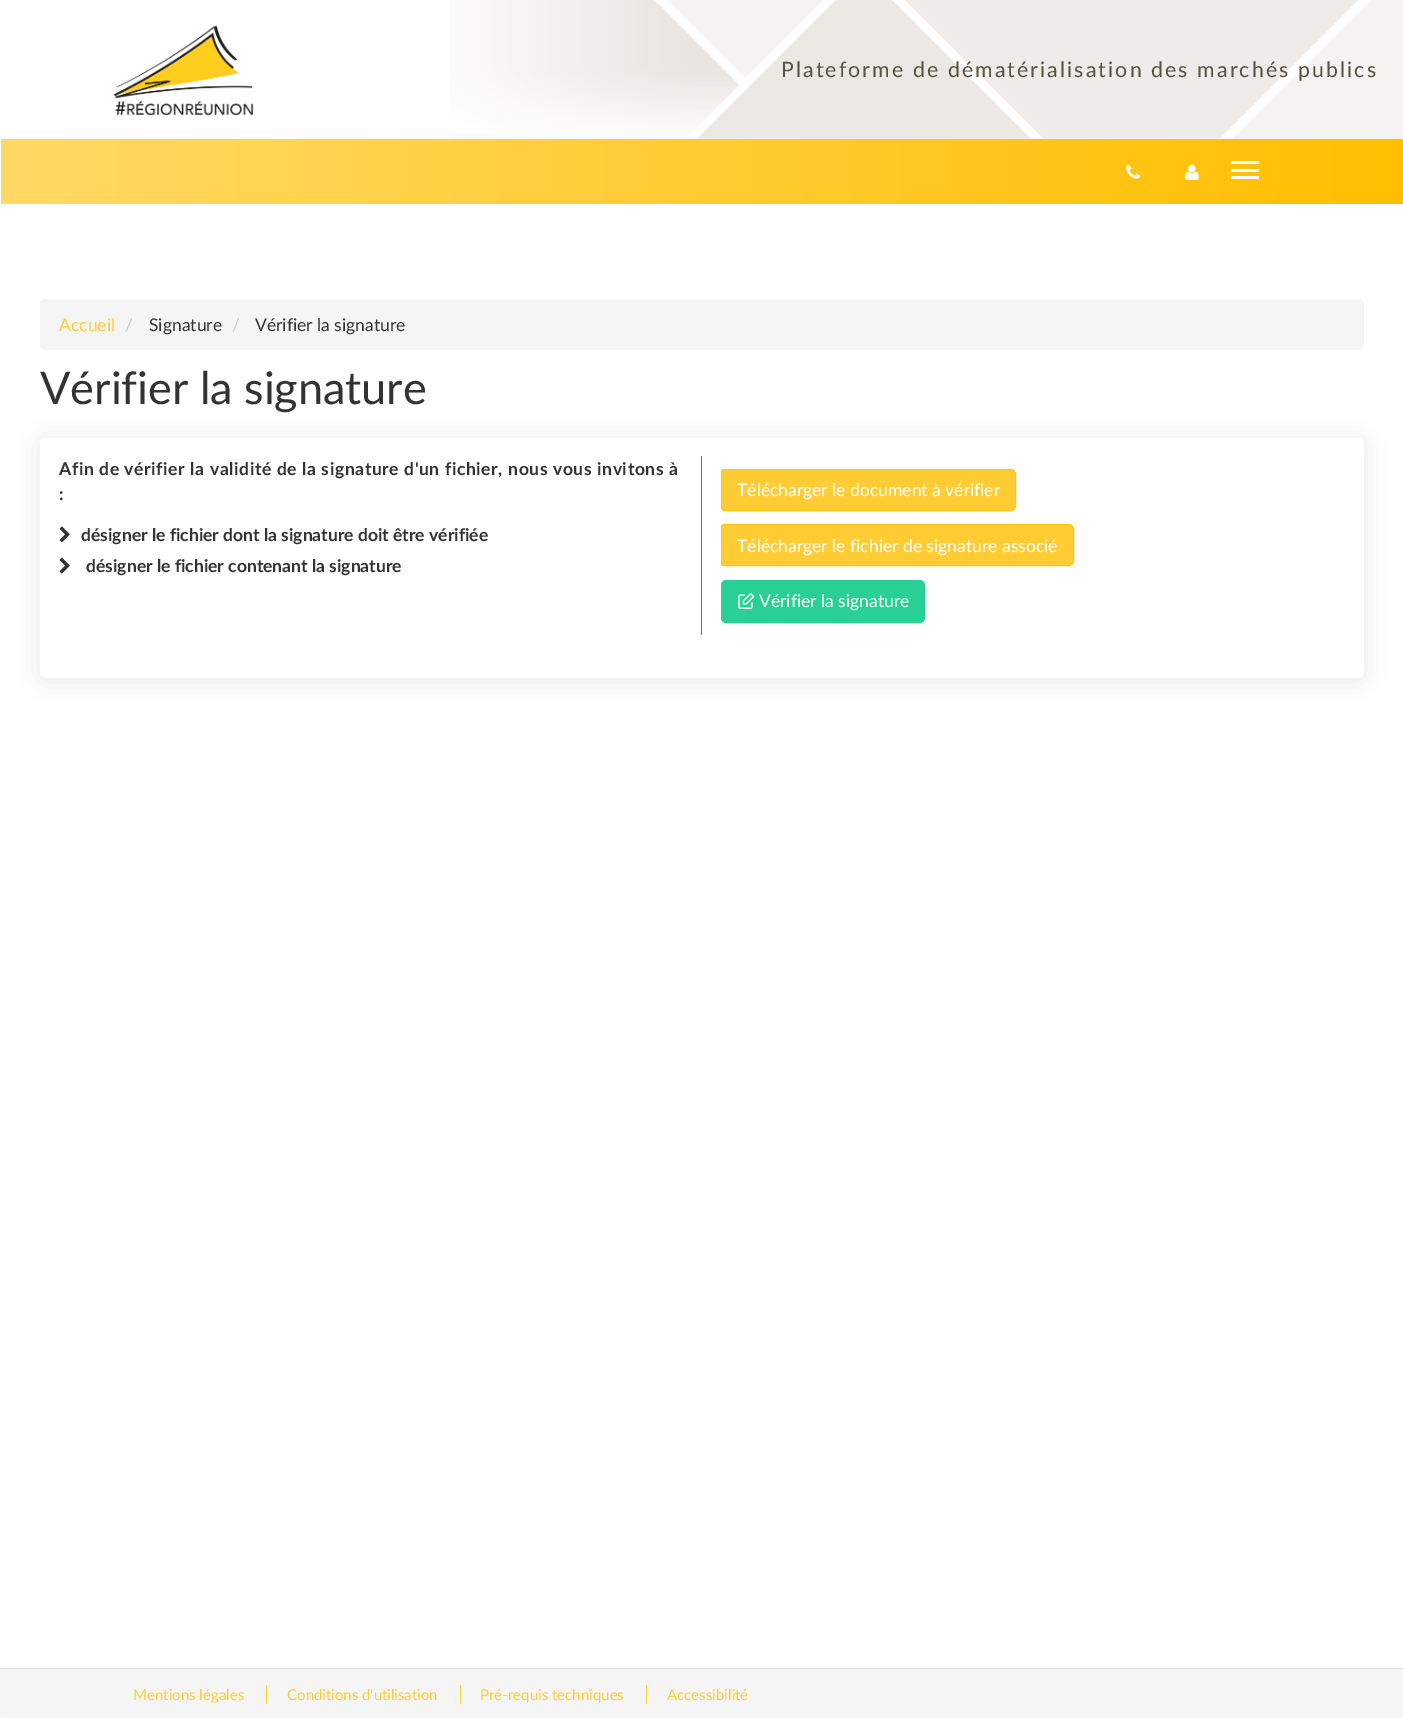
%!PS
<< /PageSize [1403 1718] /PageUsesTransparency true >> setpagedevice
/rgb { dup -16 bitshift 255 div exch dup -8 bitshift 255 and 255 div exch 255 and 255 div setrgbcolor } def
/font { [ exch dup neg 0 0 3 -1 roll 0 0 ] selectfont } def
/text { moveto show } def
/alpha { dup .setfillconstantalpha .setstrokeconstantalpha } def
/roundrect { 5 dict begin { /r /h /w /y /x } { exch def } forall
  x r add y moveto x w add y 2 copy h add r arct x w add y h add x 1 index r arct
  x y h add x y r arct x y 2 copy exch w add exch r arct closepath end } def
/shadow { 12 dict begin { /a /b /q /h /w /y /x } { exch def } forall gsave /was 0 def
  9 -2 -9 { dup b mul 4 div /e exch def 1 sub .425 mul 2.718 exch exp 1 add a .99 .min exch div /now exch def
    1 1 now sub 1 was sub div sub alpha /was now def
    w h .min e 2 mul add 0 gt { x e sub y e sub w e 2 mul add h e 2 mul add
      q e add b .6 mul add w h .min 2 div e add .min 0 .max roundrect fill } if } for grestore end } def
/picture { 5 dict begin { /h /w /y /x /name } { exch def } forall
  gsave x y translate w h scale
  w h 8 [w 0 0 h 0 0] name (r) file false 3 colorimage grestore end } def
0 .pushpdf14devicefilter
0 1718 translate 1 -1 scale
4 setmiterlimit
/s1 { /Lato-Regular 17.5 font 16#FFCC33 rgb } def
/s2 { /Lato-Regular 17.5 font 16#CCCCCC rgb } def
/s3 { /Lato-Regular 17.5 font 16#333333 rgb } def
/s4 { /Lato-Regular 45 font 16#333333 rgb } def
/s5 { /Lato-Bold 17.5 font 16#333333 rgb } def
/s6 { /Lato-Regular 17.5 font 16#FFFFFF rgb } def
/s7 { /Lato-Regular 15 font 16#FFCC33 rgb } def
16#FFFFFF rgb
0 0 1403 1718 rectfill
(pic1.raw) 449 0 954 139 picture
(pic2.raw) 113 25 141 91 picture
/Lato-Regular 21.25 font
16#565140 rgb
781 77 moveto 2.12 0 (Plateforme de dématérialisation des marchés publics) ashow
gsave 1 139 moveto 1403 139 lineto 1403 204 lineto 1 204 lineto closepath clip newpath
<< /ShadingType 2 /ColorSpace /DeviceRGB /Coords [1.2 171 1403 171] /Extend [true true] /Function << /FunctionType 2 /Domain [0 1] /C0 [1 0.851 0.4] /C1 [1 0.749 0] /N 1 >> >> shfill grestore
(pic3.raw) 1126 165 14 14 picture
(pic4.raw) 1185 165 14 15 picture
16#FFFFFF rgb
1231 161 28 3 1.5 roundrect fill
1231 169 28 3 1.5 roundrect fill
1231 176 28 3 1.5 roundrect fill
16#F5F5F5 rgb
40 299 1324 51 5 roundrect fill
s1
(Accueil) 59 331 text
s2
(/) 125 331 text
s3
(Signature) 149 331 text
s2
(/) 232 331 text
s3
(Vérifier la signature) 255 331 text
s4
(Vérifier la signature) 40 404 text
16#313548 rgb
39 439 1326 242 8 11 0.1 shadow
16#FFFFFF rgb
40 438 1324 240 6 roundrect fill
16#626E82 rgb
701 456 1 179 rectfill
/Lato-Bold 17.5 font
16#333333 rgb
59 475 moveto 0.62 0 (Afin de vérifier la validité de la signature d'un fichier, nous vous invitons à) ashow
59 500 moveto 0.62 0 (:) ashow
(pic5.raw) 59 526 11 17 picture
(désigner le fichier dont la signature doit être vérifiée) 81 541 text
(pic6.raw) 59 557 11 17 picture
(désigner le fichier contenant la signature) 86 572 text
16#FFCC33 rgb
724 469.5 moveto 1011 469.5 lineto 1013.5 469.5 1015.5 471.5 1015.5 474 curveto 1015.5 506 lineto 1015.5 508.5 1013.5 510.5 1011 510.5 curveto 724 510.5 lineto 722.5 510.5 721.5 509.5 721.5 508 curveto 721.5 472 lineto 721.5 470.5 722.5 469.5 724 469.5 curveto closepath gsave fill grestore
16#FFC61A rgb
stroke
s6
(Télécharger le document à vérifier) 737 496 text
16#FFCC33 rgb
724 524.5 moveto 1069 524.5 lineto 1071.5 524.5 1073.5 526.5 1073.5 529 curveto 1073.5 561 lineto 1073.5 563.5 1071.5 565.5 1069 565.5 curveto 724 565.5 lineto 722.5 565.5 721.5 564.5 721.5 563 curveto 721.5 527 lineto 721.5 525.5 722.5 524.5 724 524.5 curveto closepath gsave fill grestore
16#FFC61A rgb
stroke
s6
(Télécharger le fichier de signature associé) 737 552 text
16#28D094 rgb
721.5 580.5 203 42 4.5 roundrect gsave fill grestore
stroke
(pic7.raw) 738 593 17 16 picture
s6
(Vérifier la signature) 759 607 text
16#F5F5F5 rgb
0 1668 moveto 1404 1668 lineto 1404 1715 lineto 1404 1717 1402 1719 1400 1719 curveto 4 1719 lineto 2 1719 0 1717 0 1715 curveto closepath fill
16#DDDDDD rgb
0 1668 1403 1 rectfill
s7
(Mentions légales) 133 1700 text
(Conditions d'utilisation) 287 1700 text
266 1685 1 19 rectfill
(Pré-requis techniques) 480 1700 text
460 1685 1 19 rectfill
(Accessibilité) 667 1700 text
646 1685 1 19 rectfill
.poppdf14devicefilter showpage
